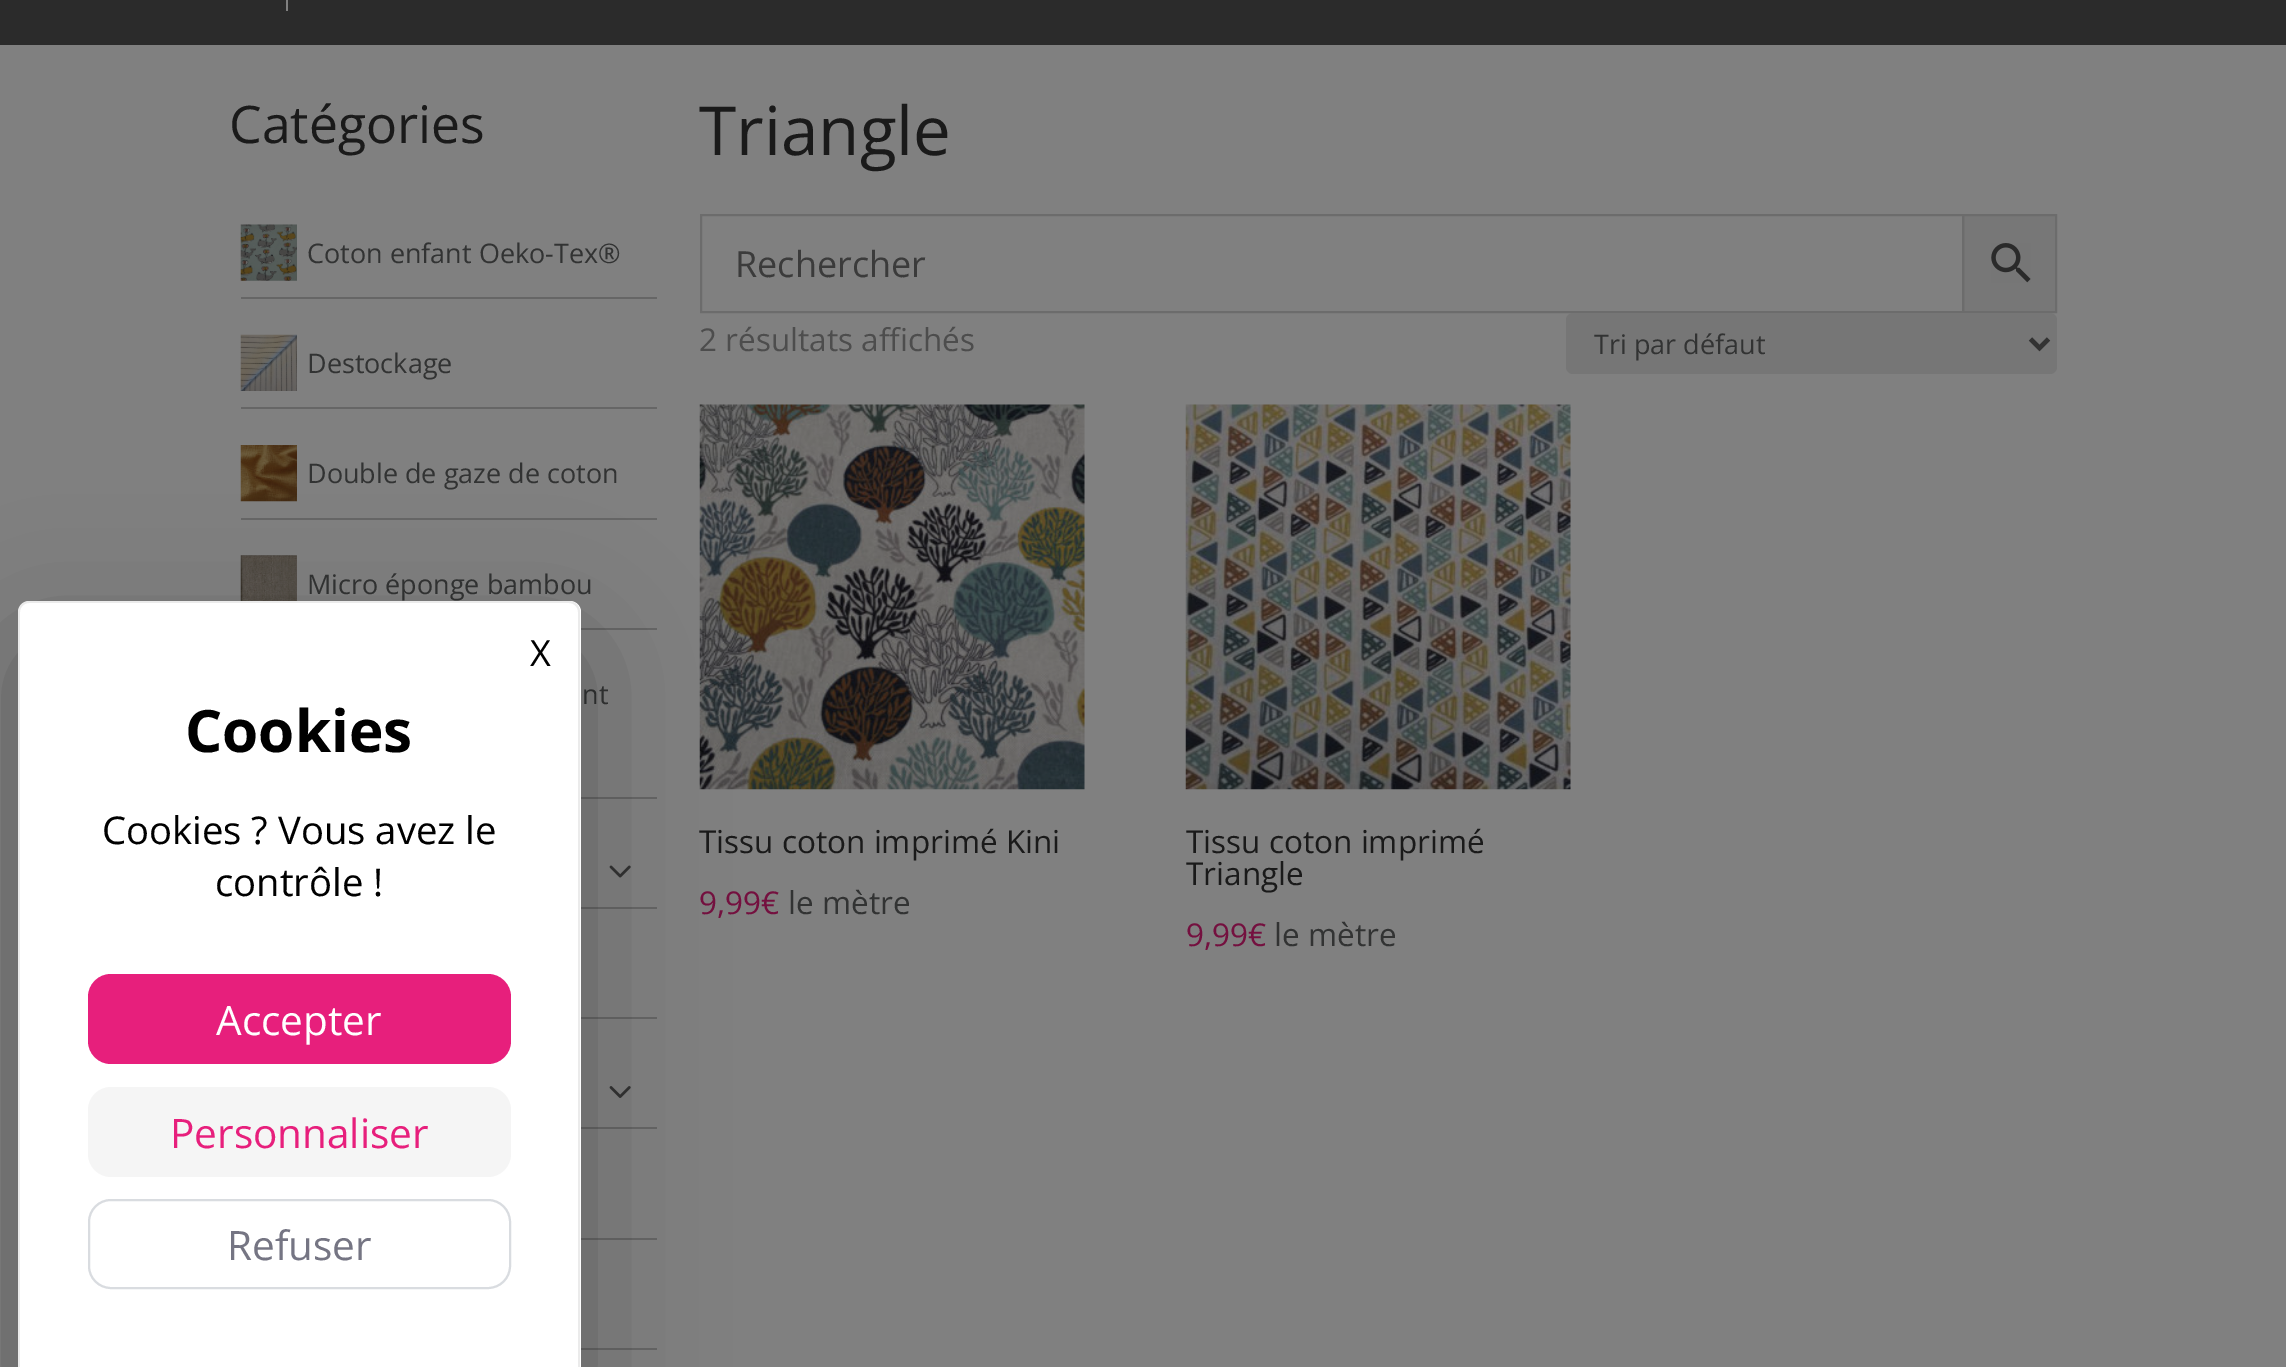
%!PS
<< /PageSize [2286 1367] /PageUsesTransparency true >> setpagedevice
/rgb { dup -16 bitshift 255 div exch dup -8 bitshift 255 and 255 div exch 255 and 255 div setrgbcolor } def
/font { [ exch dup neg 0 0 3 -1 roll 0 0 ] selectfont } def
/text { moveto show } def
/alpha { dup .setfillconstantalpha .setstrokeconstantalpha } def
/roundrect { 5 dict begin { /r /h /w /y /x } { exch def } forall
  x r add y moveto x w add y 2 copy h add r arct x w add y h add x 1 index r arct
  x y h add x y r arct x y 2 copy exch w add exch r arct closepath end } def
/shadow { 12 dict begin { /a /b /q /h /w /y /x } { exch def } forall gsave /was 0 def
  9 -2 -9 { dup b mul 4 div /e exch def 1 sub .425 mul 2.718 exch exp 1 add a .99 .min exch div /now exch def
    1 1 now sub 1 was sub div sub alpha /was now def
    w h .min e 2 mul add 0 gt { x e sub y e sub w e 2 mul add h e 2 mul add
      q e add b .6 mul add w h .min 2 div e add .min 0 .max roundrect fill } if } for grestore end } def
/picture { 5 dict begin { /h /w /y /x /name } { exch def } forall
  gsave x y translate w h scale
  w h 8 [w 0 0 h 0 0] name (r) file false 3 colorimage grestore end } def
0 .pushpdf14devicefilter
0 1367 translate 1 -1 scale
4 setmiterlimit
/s1 { /OpenSans-Regular 51.75 font 16#1A1A1A rgb } def
/s2 { /OpenSans-Regular 27 font 16#323333 rgb } def
/s3 { /OpenSans-Regular 67.5 font 16#1A1A1A rgb } def
/s4 { /OpenSans-Regular 36 font 16#3B3B3B rgb } def
/s5 { /OpenSans-Regular 31.5 font 16#4D4D4D rgb } def
/s6 { /OpenSans-Regular 31.5 font 16#1A1A1A rgb } def
/s7 { /OpenSans-Regular 31.5 font 16#74103F rgb } def
/s8 { /OpenSans-Regular 31.5 font 16#323333 rgb } def
/s9 { /OpenSans-Regular 36 font 16#000000 rgb } def
/s10 { /OpenSans-Bold 58.5 font 16#000000 rgb } def
/s11 { /OpenSans-Regular 38.25 font 16#000000 rgb } def
/s12 { /OpenSans-Regular 40.5 font 16#FFFFFF rgb } def
/s13 { /OpenSans-Regular 40.5 font 16#E71F7C rgb } def
/s14 { /OpenSans-Regular 40.5 font 16#757583 rgb } def
16#808080 rgb
0 0 2286 1367 rectfill
16#2B2B2B rgb
0 0 2286 45 rectfill
16#808080 rgb
286 0 2 11 rectfill
s1
(Catégories) 229 143 text
16#666666 rgb
241 297 416 2 rectfill
(pic1.raw) 240 224 57 57 picture
s2
(Coton enfant Oeko-Tex®) 307 263 text
16#666666 rgb
241 407 416 2 rectfill
(pic2.raw) 240 334 57 57 picture
s2
(Destockage) 307 373 text
16#666666 rgb
241 518 416 2 rectfill
(pic3.raw) 240 445 57 57 picture
s2
(Double de gaze de coton) 307 483 text
16#666666 rgb
581 628 76 2 rectfill
(pic4.raw) 240 555 57 46 picture
s2
(Micro éponge bambou) 307 594 text
16#666666 rgb
581 797 76 2 rectfill
s2
(nt) 582 704 text
(pic5.raw) 609 865 22 13 picture
16#666666 rgb
581 907 76 2 rectfill
581 1017 76 2 rectfill
(pic6.raw) 609 1086 22 12 picture
581 1127 76 2 rectfill
581 1238 76 2 rectfill
581 1348 76 2 rectfill
s3
(Triangle) 699 155 text
16#777777 rgb
1963 215 moveto 2056 215 lineto 2056 312 lineto 1963 312 lineto closepath gsave fill grestore
16#6C6C6C rgb
2 setlinewidth
stroke
701 215 1262 97 rectstroke
s4
(Rechercher) 735 277 text
(pic7.raw) 1991 243 40 40 picture
s5
(2 résultats affichés) 699 351 text
16#767676 rgb
1566 313 491 61 7 roundrect fill
16#333333 rgb
4.5 setlinewidth
2030.5 339 moveto 2039.5 348 lineto 2048.5 339 lineto stroke
s2
(Tri par défaut) 1594 354 text
(pic8.raw) 699 404 386 386 picture
s6
(Tissu coton imprimé Kini) 699 853 text
s7
(9,99€) 699 914 text
s8
(le mètre) 788 914 text
(pic9.raw) 1185 404 386 386 picture
s6
(Tissu coton imprimé) 1186 853 text
(Triangle) 1186 885 text
s7
(9,99€) 1186 946 text
s8
(le mètre) 1274 946 text
16#000000 rgb
18 646 563 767 11 67.5 0.25 shadow
16#FFFFFF rgb
29 601 moveto 570 601 lineto 576 601 581 606 581 612 curveto 581 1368 lineto 18 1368 lineto 18 612 lineto 18 606 23 601 29 601 curveto closepath fill
0.08 alpha
16#000000 rgb
29 601 moveto 569 601 lineto 575 601 580 606 580 612 curveto 580 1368 lineto 18 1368 lineto 18 612 lineto 18 606 23 601 29 601 curveto closepath 29 603 moveto 569 603 lineto 574 603 578 607 578 612 curveto 578 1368 lineto 20 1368 lineto 20 612 lineto 20 607 24 603 29 603 curveto closepath eofill
1 alpha
s9
(X) 530 666 text
s10
(Cookies) 185 752 text
s11
(Cookies ? Vous avez le) 102 844 text
(contrôle !) 215 896 text
16#E71F7C rgb
88 974 423 90 23 roundrect fill
s12
(Accepter) 216 1035 text
16#F5F5F5 rgb
88 1087 423 90 23 roundrect fill
s13
(Personnaliser) 170 1148 text
16#D9DCE0 rgb
2 setlinewidth
89 1200 421 88 22 roundrect stroke
s14
(Refuser) 227 1260 text
.poppdf14devicefilter showpage
